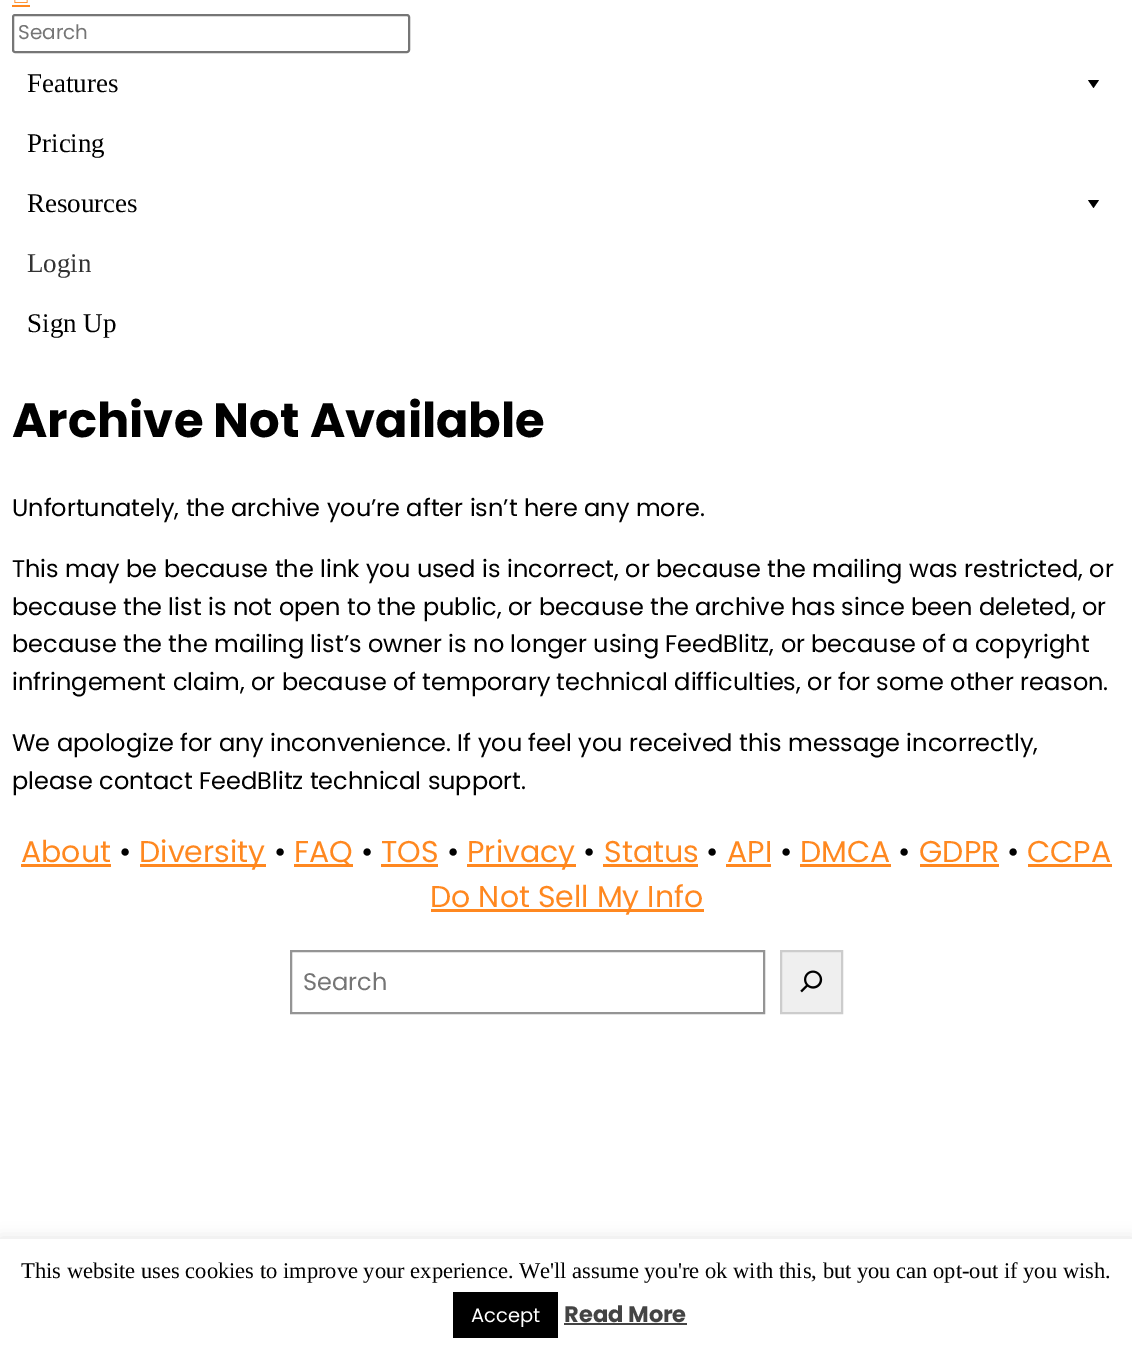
%!PS
<< /PageSize [1132 1356] /PageUsesTransparency true >> setpagedevice
/rgb { dup -16 bitshift 255 div exch dup -8 bitshift 255 and 255 div exch 255 and 255 div setrgbcolor } def
/font { [ exch dup neg 0 0 3 -1 roll 0 0 ] selectfont } def
/text { moveto show } def
/alpha { dup .setfillconstantalpha .setstrokeconstantalpha } def
/roundrect { 5 dict begin { /r /h /w /y /x } { exch def } forall
  x r add y moveto x w add y 2 copy h add r arct x w add y h add x 1 index r arct
  x y h add x y r arct x y 2 copy exch w add exch r arct closepath end } def
/shadow { 12 dict begin { /a /b /q /h /w /y /x } { exch def } forall gsave /was 0 def
  9 -2 -9 { dup b mul 4 div /e exch def 1 sub .425 mul 2.718 exch exp 1 add a .99 .min exch div /now exch def
    1 1 now sub 1 was sub div sub alpha /was now def
    w h .min e 2 mul add 0 gt { x e sub y e sub w e 2 mul add h e 2 mul add
      q e add b .6 mul add w h .min 2 div e add .min 0 .max roundrect fill } if } for grestore end } def
/picture { 5 dict begin { /h /w /y /x /name } { exch def } forall
  gsave x y translate w h scale
  w h 8 [w 0 0 h 0 0] name (r) file false 3 colorimage grestore end } def
0 .pushpdf14devicefilter
0 1356 translate 1 -1 scale
4 setmiterlimit
/s1 { /Poppins-Regular 20 font 16#757575 rgb } def
/s2 { /LiberationSerif-Regular 27 font 16#000000 rgb } def
/s3 { /LiberationSerif-Regular 27 font 16#333333 rgb } def
/s4 { /Poppins-Bold 48 font 16#000000 rgb } def
/s5 { /Poppins-Regular 24 font 16#000000 rgb } def
/s6 { /Poppins-Regular 30 font 16#FF8820 rgb } def
/s7 { /Poppins-Regular 30 font 16#000000 rgb } def
/s8 { /Poppins-Regular 24 font 16#757575 rgb } def
/s9 { /LiberationSerif-Regular 22.5 font 16#000000 rgb } def
/s10 { /Poppins-Regular 19.5 font 16#FFFFFF rgb } def
/s11 { /Poppins-Bold 22.5 font 16#444444 rgb } def
16#FFFFFF rgb
0 0 1132 1356 rectfill
(pic1.raw) 14 0 14 3 picture
16#FF8820 rgb
12 5 18 2 rectfill
16#767676 rgb
2 setlinewidth
13 15 396 37 2 roundrect stroke
s1
(Search) 18 39 text
s2
(Features) 27 92 text
1099 80 moveto 1093.5 88 lineto 1088 80 lineto closepath fill
(Pricing) 27 152 text
(Resources) 27 212 text
1099 200 moveto 1093.5 208 lineto 1088 200 lineto closepath fill
s3
(Login) 27 272 text
s2
(Sign Up) 27 332 text
s4
(Archive Not Available) 12 437 text
s5
(Unfortunately, the archive you’re after isn’t here any more.) 12 516 text
(This may be because the link you used is incorrect, or because the mailing was restricted, or) 12 577 text
(because the list is not open to the public, or because the archive has since been deleted, or) 12 615 text
(because the the mailing list’s owner is no longer using FeedBlitz, or because of a copyright) 12 652 text
(infringement claim, or because of temporary technical difficulties, or for some other reason.) 12 690 text
(We apologize for any inconvenience. If you feel you received this message incorrectly,) 12 751 text
(please contact FeedBlitz technical support.) 12 789 text
s6
(About) 21 862 text
21 864 90 3 rectfill
s7
(•) 119 862 text
16#FF8820 rgb
140 864 126 3 rectfill
(Diversity) 139 862 text
s7
(•) 274 862 text
16#FF8820 rgb
294 864 59 3 rectfill
(FAQ) 294 862 text
s7
(•) 361 862 text
s6
(TOS) 381 862 text
381 864 57 3 rectfill
s7
(•) 447 862 text
16#FF8820 rgb
467 864 109 3 rectfill
(Privacy) 467 862 text
s7
(•) 583 862 text
s6
(Status) 604 862 text
603 864 95 3 rectfill
s7
(•) 706 862 text
s6
(API) 727 862 text
726 864 45 3 rectfill
s7
(•) 780 862 text
s6
(DMCA) 800 862 text
800 864 91 3 rectfill
s7
(•) 898 862 text
s6
(GDPR) 919 862 text
920 864 79 3 rectfill
s7
(•) 1007 862 text
s6
(CCPA) 1027 862 text
1028 864 84 3 rectfill
431 909 273 3 rectfill
(Do Not Sell My Info) 430 907 text
16#949494 rgb
291 951 473 62 rectstroke
s8
(Search) 303 990 text
16#EFEFEF rgb
781 951 moveto 842 951 lineto 842 1013 lineto 781 1013 lineto closepath gsave fill grestore
16#CCCCCC rgb
stroke
(pic2.raw) 800 970 23 23 picture
16#ACABAB rgb
0 1238 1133 117 0 7.5 0.3 shadow
16#FFFFFF rgb
0 1239 1132 117 rectfill
s9
(This website uses cookies to improve your experience. We'll assume you're ok with this, but you can opt-out if you wish.) 21 1278 text
453 1292 105 46 rectfill
s10
(Accept) 471 1322 text
s11
(Read More) 564 1322 text
564 1323 123 2 rectfill
.poppdf14devicefilter showpage
